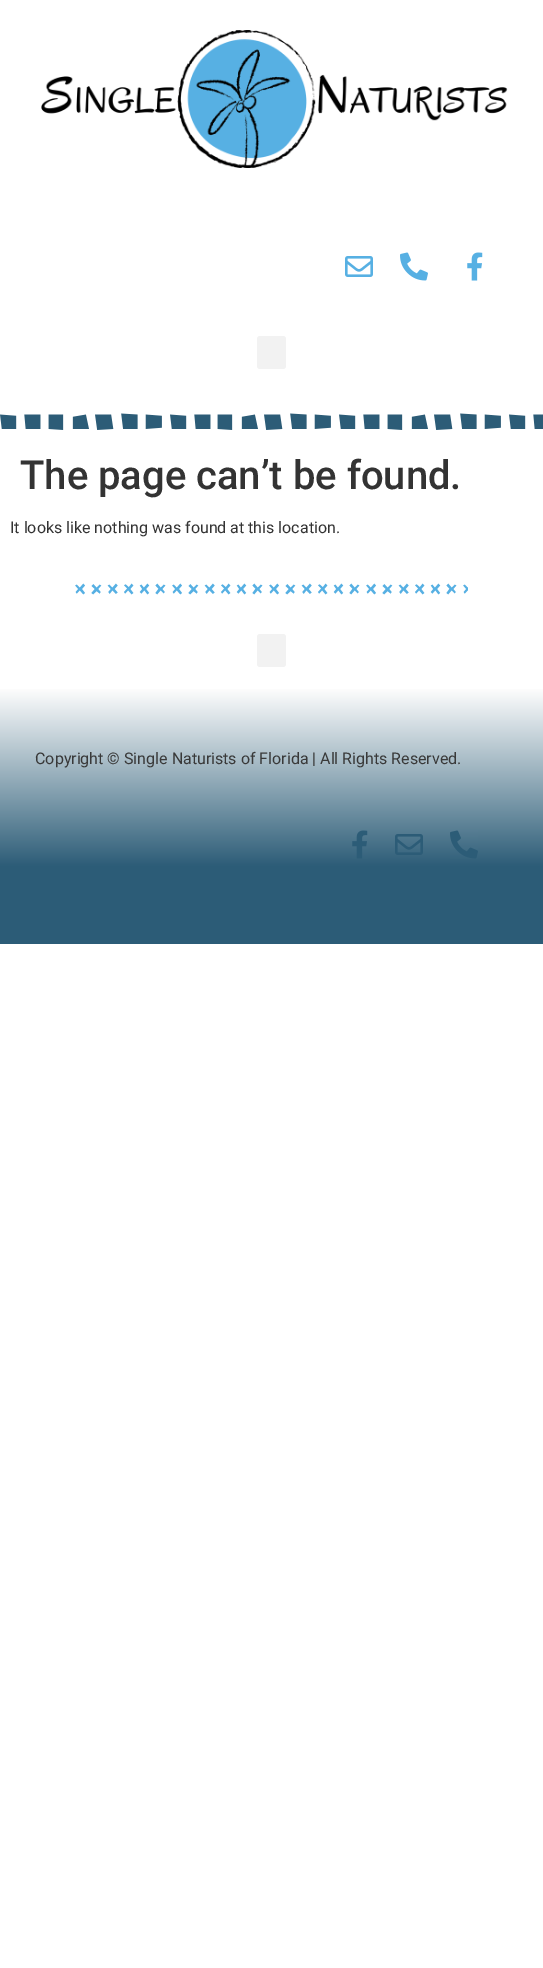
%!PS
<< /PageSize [543 1968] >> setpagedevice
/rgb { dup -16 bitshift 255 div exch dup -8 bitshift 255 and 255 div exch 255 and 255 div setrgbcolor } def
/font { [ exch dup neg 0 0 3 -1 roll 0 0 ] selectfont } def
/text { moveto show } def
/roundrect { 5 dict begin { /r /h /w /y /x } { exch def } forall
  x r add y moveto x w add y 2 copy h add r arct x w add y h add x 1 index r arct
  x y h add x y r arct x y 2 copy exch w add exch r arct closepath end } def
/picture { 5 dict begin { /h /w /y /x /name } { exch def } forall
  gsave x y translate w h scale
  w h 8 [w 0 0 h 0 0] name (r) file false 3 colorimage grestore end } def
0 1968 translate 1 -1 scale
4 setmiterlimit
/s1 { /Roboto-Medium 40 font 16#333333 rgb } def
/s2 { /Roboto-Regular 16 font 16#333333 rgb } def
/s3 { /Roboto-Regular 16 font 16#393939 rgb } def
16#FFFFFF rgb
0 0 543 1968 rectfill
(pic1.raw) 41 30 467 138 picture
(pic2.raw) 345 256 28 21 picture
(pic3.raw) 400 252 28 29 picture
(pic4.raw) 467 252 16 29 picture
16#F2F2F2 rgb
257 336 29 33 3 roundrect fill
(pic5.raw) 0 413 543 17 picture
s1
(The page can’t be found.) 20 489 text
s2
(It looks like nothing was found at this location.) 10 533 text
(pic6.raw) 75 583 393 12 picture
16#F2F2F2 rgb
257 634 29 33 3 roundrect fill
gsave 0 689 moveto 543 689 lineto 543 944 lineto 0 944 lineto closepath clip newpath
<< /ShadingType 2 /ColorSpace /DeviceRGB /Coords [272 687 272 944] /Extend [true true] /Function << /FunctionType 3 /Domain [0 1] /Functions [<< /FunctionType 2 /Domain [0 1] /C0 [1 1 1] /C1 [0.173 0.361 0.467] /N 1 >> << /FunctionType 2 /Domain [0 1] /C0 [0.173 0.361 0.467] /C1 [0.173 0.361 0.467] /N 1 >>] /Bounds [0.7] /Encode [0 1 0 1] >> >> shfill grestore
s3
(Copyright © Single Naturists of Florida | All Rights Reserved.) 35 764 text
(pic7.raw) 352 830 16 29 picture
(pic8.raw) 395 834 28 21 picture
(pic9.raw) 450 830 28 29 picture
showpage
